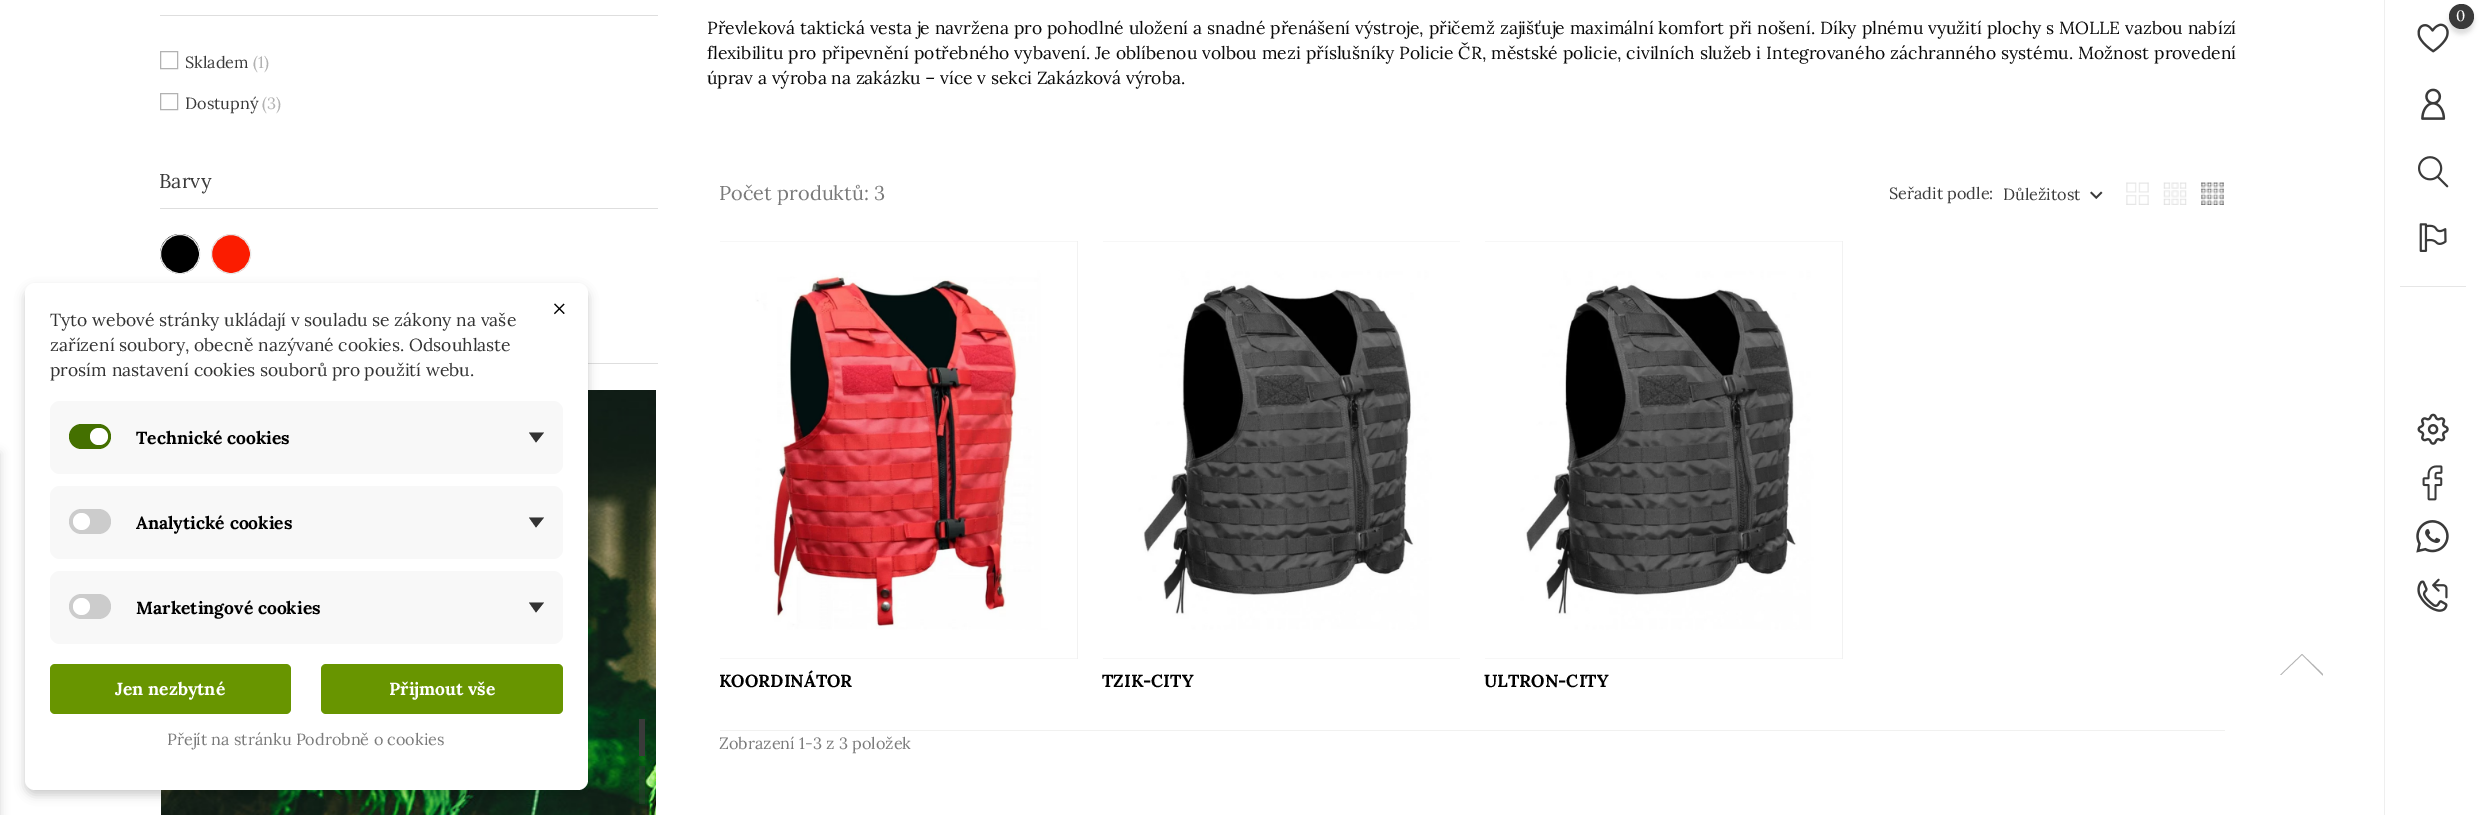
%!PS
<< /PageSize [2479 815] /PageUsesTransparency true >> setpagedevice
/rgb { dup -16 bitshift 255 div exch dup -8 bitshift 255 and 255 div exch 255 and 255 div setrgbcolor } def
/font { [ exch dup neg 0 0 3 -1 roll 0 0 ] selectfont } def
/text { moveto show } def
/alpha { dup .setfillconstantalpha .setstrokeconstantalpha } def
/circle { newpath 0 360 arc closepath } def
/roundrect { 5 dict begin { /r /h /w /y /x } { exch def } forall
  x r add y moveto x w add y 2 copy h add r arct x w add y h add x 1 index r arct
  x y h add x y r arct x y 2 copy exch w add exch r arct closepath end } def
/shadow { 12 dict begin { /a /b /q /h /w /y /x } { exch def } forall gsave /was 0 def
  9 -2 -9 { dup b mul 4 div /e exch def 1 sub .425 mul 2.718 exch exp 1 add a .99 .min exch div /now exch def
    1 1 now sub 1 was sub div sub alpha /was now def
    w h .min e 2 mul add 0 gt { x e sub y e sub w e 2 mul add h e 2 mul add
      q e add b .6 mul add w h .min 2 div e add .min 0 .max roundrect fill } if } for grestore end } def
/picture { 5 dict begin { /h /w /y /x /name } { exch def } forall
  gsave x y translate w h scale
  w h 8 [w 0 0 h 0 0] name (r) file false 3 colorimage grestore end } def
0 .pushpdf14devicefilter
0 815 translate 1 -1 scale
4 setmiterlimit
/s1 { /Lora-Regular 15 font 16#FFFFFF rgb } def
/s2 { /Lora-Regular 16.25 font 16#3A3A3A rgb } def
/s3 { /Lora-Regular 16.25 font 16#B2B2B2 rgb } def
/s4 { /Lora-Regular 20 font 16#3A3A3A rgb } def
/s5 { /Lora-Regular 17.5 font 16#0A0A0A rgb } def
/s6 { /Lora-Regular 20 font 16#7A7A7A rgb } def
/s7 { /Lora-Bold 17.5 font 16#000000 rgb } def
/s8 { /Lora-Regular 16.25 font 16#7A7A7A rgb } def
/s9 { /Lora-Regular 31 font 16#000000 rgb } def
/s10 { /Lora-Regular 17.5 font 16#333333 rgb } def
/s11 { /Lora-Bold 17.5 font 16#FFFFFF rgb } def
16#FFFFFF rgb
0 0 2479 815 rectfill
16#EFEFEF rgb
2384 0 1 815 rectfill
(pic1.raw) 2417 23 32 30 picture
16#000000 rgb
2449 9 25 25 12.5 2.5 0.14 shadow
16#3A3A3A rgb
2461.5 16.5 12.5 circle fill
s1
(0) 2456 21 text
(pic2.raw) 2421 88 25 32 picture
(pic3.raw) 2418 156 31 32 picture
(pic4.raw) 2419 223 28 29 picture
16#E6E6E6 rgb
2400 286 66 1 rectfill
(pic5.raw) 2417 413 32 32 picture
(pic6.raw) 2422 465 21 36 picture
(pic7.raw) 2416 520 33 33 picture
(pic8.raw) 2417 578 31 34 picture
16#000000 rgb
-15 453 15 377 0 5 0.16 shadow
16#DEDEDE rgb
160 15 498 1 rectfill
16#B2B2B2 rgb
160.5 51.5 17 17 rectstroke
s2
(Skladem) 185 68 text
s3
(\(1\)) 253 68 text
160.5 93.5 17 16 rectstroke
s2
(Dostupný) 185 109 text
s3
(\(3\)) 262 109 text
16#DEDEDE rgb
160 208 498 1 rectfill
s4
(Barvy) 159 188 text
(pic9.raw) 160 234 40 40 picture
16#E7E7E7 rgb
180 254 19.5 circle stroke
16#FB1C00 rgb
231 254 19.5 circle gsave fill grestore
16#E7E7E7 rgb
stroke
16#DEDEDE rgb
588 363 70 1 rectfill
(pic10.raw) 161 390 495 425 picture
16#3A3A3A rgb
639 719 6 37 rectfill
0.4 alpha
639 766 6 38 rectfill
/Lora-Regular 17.5 font
1 alpha
16#0A0A0A rgb
707 34 moveto 0.3 0 32 (Převleková taktická vesta je navržena pro pohodlné uložení a snadné přenášení výstroje, přičemž zajišťuje maximální komfort při nošení. Díky plnému využití plochy s MOLLE vazbou nabízí) widthshow
707 59 moveto 0.4 0 32 (flexibilitu pro připevnění potřebného vybavení. Je oblíbenou volbou mezi příslušníky Policie ČR, městské policie, civilních služeb i Integrovaného záchranného systému. Možnost provedení) widthshow
(úprav a výroba na zakázku – více v sekci Zakázková výroba.) 707 84 text
s6
(Počet produktů: 3) 719 200 text
s2
(Seřadit podle:) 1889 199 text
(Důležitost) 2003 200 text
(pic11.raw) 2090 191 13 8 picture
(pic12.raw) 2126 182 23 23 picture
(pic13.raw) 2163 182 24 23 picture
(pic14.raw) 2201 182 23 23 picture
16#EDEDED rgb
720 241 358 418 rectfill
(pic15.raw) 720 241 358 418 picture
s7
(KOORDINÁTOR) 719 687 text
16#EDEDED rgb
1103 241 357 418 rectfill
(pic16.raw) 1103 241 357 418 picture
s7
(TZIK-CITY) 1102 687 text
16#EDEDED rgb
1485 241 358 418 rectfill
(pic17.raw) 1485 241 358 418 picture
s7
(ULTRON-CITY) 1484 687 text
16#F1F1F0 rgb
720 730 1505 1 rectfill
s8
(Zobrazení 1-3 z 3 položek) 719 749 text
16#000000 rgb
25 288 563 507 10 5 0.2 shadow
16#FFFFFF rgb
25 283 563 507 10 roundrect fill
s9
(×) 551 320 text
s10
(Tyto webové stránky ukládají v souladu se zákony na vaše) 50 326 text
(zařízení soubory, obecně nazývané cookies. Odsouhlaste) 50 351 text
(prosím nastavení cookies souborů pro použití webu.) 50 376 text
16#F8F8F8 rgb
50 401 513 73 10 roundrect fill
16#447000 rgb
69 424 42 25 12.5 roundrect fill
16#FFFFFF rgb
90 428 18 17 8.5 roundrect fill
s7
(Technické cookies) 136 444 text
16#333333 rgb
529 432.5 moveto 544 432.5 lineto 536 442.5 lineto closepath fill
16#F8F8F8 rgb
50 486 513 73 10 roundrect fill
16#CCCCCC rgb
69 509 42 25 12.5 roundrect fill
16#FFFFFF rgb
81.5 521.5 8.5 circle fill
s7
(Analytické cookies) 136 529 text
16#333333 rgb
529 517.5 moveto 544 517.5 lineto 536 527.5 lineto closepath fill
16#F8F8F8 rgb
50 571 513 73 10 roundrect fill
16#CCCCCC rgb
69 594 42 25 12.5 roundrect fill
16#FFFFFF rgb
81.5 606.5 8.5 circle fill
s7
(Marketingové cookies) 136 614 text
16#333333 rgb
529 602.5 moveto 544 602.5 lineto 536 612.5 lineto closepath fill
16#689500 rgb
50 664 241 50 5 roundrect fill
s11
(Jen nezbytné) 115 695 text
16#689500 rgb
321 664 242 50 5 roundrect fill
s11
(Přijmout vše) 389 695 text
s8
(Přejít na stránku Podrobně o cookies) 167 745 text
16#B2B2B2 rgb
2302 654 moveto 2280 675 lineto 2281 675 lineto 2302 655 lineto 2322 675 lineto 2323 676 2323 675 2323 674 curveto closepath fill
.poppdf14devicefilter showpage
